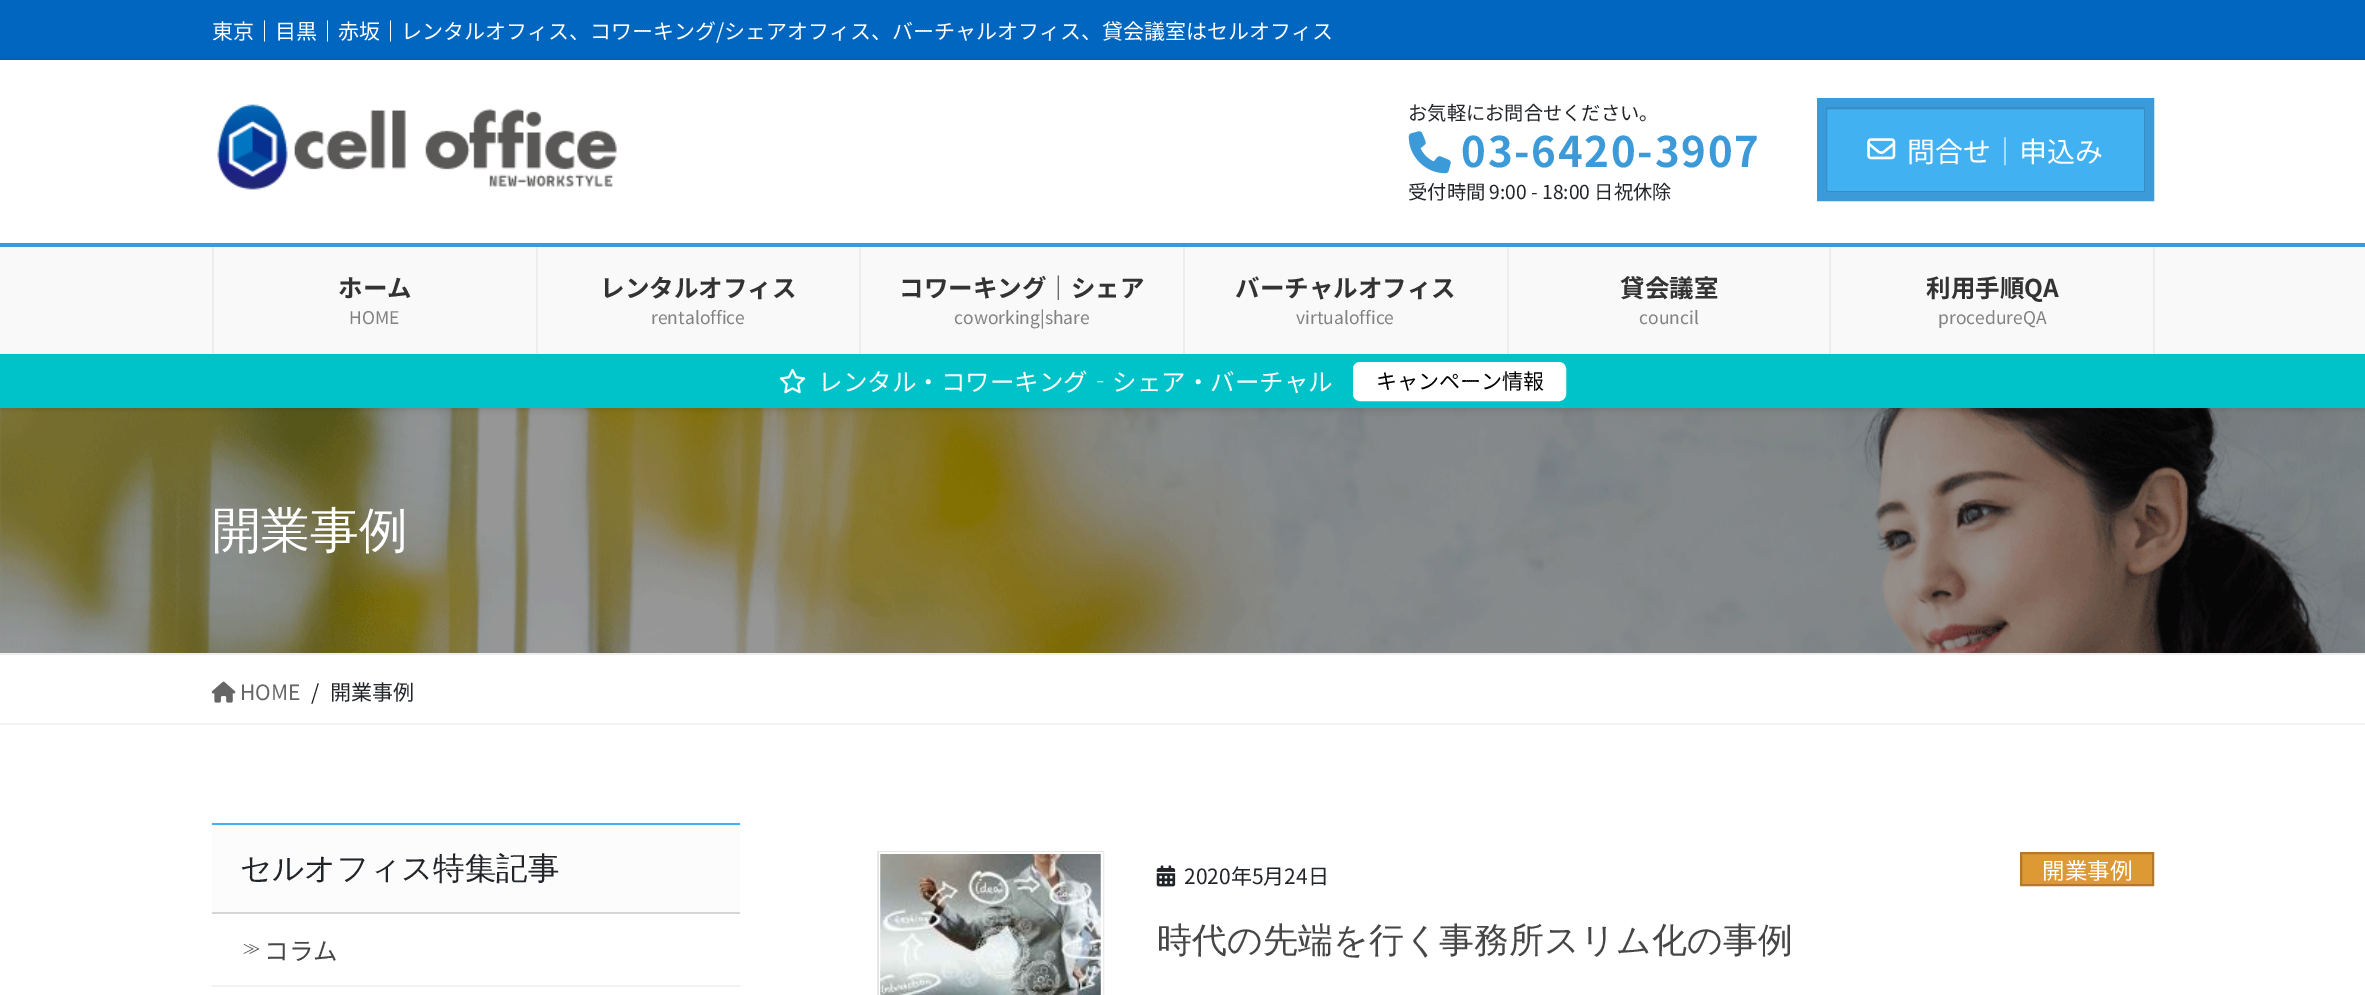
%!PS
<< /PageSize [2365 995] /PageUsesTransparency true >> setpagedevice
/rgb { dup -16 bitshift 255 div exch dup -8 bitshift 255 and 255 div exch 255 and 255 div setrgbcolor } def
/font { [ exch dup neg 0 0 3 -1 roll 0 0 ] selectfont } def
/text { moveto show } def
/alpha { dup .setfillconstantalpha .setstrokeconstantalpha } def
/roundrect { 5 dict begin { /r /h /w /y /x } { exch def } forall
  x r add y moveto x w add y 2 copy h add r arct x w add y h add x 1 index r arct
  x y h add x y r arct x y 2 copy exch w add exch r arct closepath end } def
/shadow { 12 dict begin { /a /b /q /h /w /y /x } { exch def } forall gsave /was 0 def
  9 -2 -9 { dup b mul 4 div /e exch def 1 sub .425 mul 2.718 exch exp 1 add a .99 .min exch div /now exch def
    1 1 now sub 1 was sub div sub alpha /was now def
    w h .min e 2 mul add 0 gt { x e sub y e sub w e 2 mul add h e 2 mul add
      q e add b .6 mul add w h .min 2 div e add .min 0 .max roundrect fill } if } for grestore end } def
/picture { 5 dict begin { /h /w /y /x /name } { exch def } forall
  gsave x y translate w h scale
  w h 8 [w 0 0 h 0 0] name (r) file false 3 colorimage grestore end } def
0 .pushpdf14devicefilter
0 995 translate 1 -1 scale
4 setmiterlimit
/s1 { /NotoSansJP-Regular 21 font 16#FFFFFF rgb } def
/s2 { /NotoSansJP-Regular 19.25 font 16#212529 rgb } def
/s3 { /NotoSansJP-Regular 28 font 16#FFFFFF rgb } def
/s4 { /NotoSansJP-Bold 24.5 font 16#333333 rgb } def
/s5 { /NotoSansJP-Regular 17.5 font 16#828282 rgb } def
/s6 { /NotoSansJP-Regular 24.5 font 16#FFFFFF rgb } def
/s7 { /NotoSansJP-Regular 21 font 16#000000 rgb } def
/s8 { /WenQuanYiZenHei-Medium 49 font 16#FFFFFF rgb } def
/s9 { /NotoSansJP-Regular 21 font 16#666666 rgb } def
/s10 { /NotoSansJP-Regular 21 font 16#212529 rgb } def
/s11 { /WenQuanYiZenHei-Medium 31.5 font 16#212529 rgb } def
/s12 { /WenQuanYiZenHei-Medium 17.5 font 16#464646 rgb } def
/s13 { /NotoSansJP-Regular 24.5 font 16#464646 rgb } def
/s14 { /NotoSansJP-Regular 22.5 font 16#FFFFFF rgb } def
/s15 { /WenQuanYiZenHei-Medium 35 font 16#464646 rgb } def
16#FFFFFF rgb
0 0 2365 995 rectfill
(pic5.raw) 0 408 2365 245 picture
16#000000 rgb
0 -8 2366 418 0 2.5 0.1 shadow
16#FFFFFF rgb
0 60 2365 183 rectfill
16#0066BF rgb
0 0 2365 58 rectfill
16#0062B7 rgb
0 58 2365 2 rectfill
s1
(東京｜目黒｜赤坂｜レンタルオフィス、コワーキング/シェアオフィス、バーチャルオフィス、貸会議室はセルオフィス) 212 39 text
(pic1.raw) 217 104 400 86 picture
s2
(お気軽にお問合せください。) 1408 120 text
(pic2.raw) 1408 131 43 43 picture
/NotoSansJP-Bold 42 font
16#3C9AD8 rgb
1461 167 moveto 1.75 0 (03-6420-3907) ashow
s2
(受付時間 9:00 - 18:00 日祝休除) 1408 199 text
16#41B1F2 rgb
1826 108 moveto 2145 108 lineto 2145 192 lineto 1826 192 lineto closepath gsave fill grestore
16#348EC2 rgb
2 setlinewidth
stroke
16#3C9AD8 rgb
9 setlinewidth
1821.5 102.5 328 94 rectstroke
(pic3.raw) 1867 138 29 22 picture
s3
(問合せ｜申込み) 1907 162 text
16#F9F9F9 rgb
0 247 2365 107 rectfill
16#3C9AD8 rgb
0 243 2365 4 rectfill
16#EDEDED rgb
212 247 2 107 rectfill
s4
(ホーム) 338 297 text
s5
(HOME) 349 324 text
16#EDEDED rgb
536 247 2 107 rectfill
s4
(レンタルオフィス) 600 297 text
s5
(rentaloffice) 651 324 text
16#EDEDED rgb
859 247 2 107 rectfill
s4
(コワーキング｜シェア) 899 297 text
s5
(coworking|share) 954 324 text
16#EDEDED rgb
1183 247 2 107 rectfill
s4
(バーチャルオフィス) 1235 297 text
s5
(virtualoffice) 1296 324 text
16#EDEDED rgb
1507 247 2 107 rectfill
s4
(貸会議室) 1620 297 text
s5
(council) 1639 324 text
16#EDEDED rgb
2153 247 2 107 rectfill
1829 247 2 107 rectfill
s4
(利用手順QA) 1926 297 text
s5
(procedureQA) 1938 324 text
16#00C2C9 rgb
0 354 2365 54 rectfill
(pic4.raw) 779 368 27 26 picture
s6
(レンタル・コワーキング‐シェア・バーチャル) 818 391 text
1354 363 211 37 6 roundrect gsave fill grestore
2 setlinewidth
stroke
s7
(キャンペーン情報) 1376 389 text
16#EEEEEE rgb
0 653 2365 2 rectfill
s8
(開業事例) 212 547 text
16#F3F3F3 rgb
0 723 2365 2 rectfill
(pic6.raw) 211 681 25 22 picture
s9
(HOME) 240 700 text
s10
(/) 311 700 text
(開業事例) 330 700 text
16#FCFCFC rgb
212 825 528 87 rectfill
16#41B1F2 rgb
212 823 528 2 rectfill
16#D6D6D6 rgb
212 912 528 2 rectfill
s11
(セルオフィス特集記事) 240 879 text
16#F2F2F2 rgb
212 985 528 2 rectfill
s12
(≫) 243 954 text
s13
(コラム) 264 960 text
16#E5E5E5 rgb
878 852 225 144 rectstroke
16#FFFFFF rgb
880 853 222 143 rectstroke
(pic7.raw) 880 854 221 141 picture
(pic8.raw) 1156 865 20 22 picture
s10
(2020年5月24日) 1184 884 text
16#DD9933 rgb
2021 853 moveto 2153 853 lineto 2153 885 lineto 2021 885 lineto closepath gsave fill grestore
16#B17A29 rgb
stroke
s14
(開業事例) 2042 879 text
s15
(時代の先端を行く事務所スリム化の事例) 1157 952 text
.poppdf14devicefilter showpage
